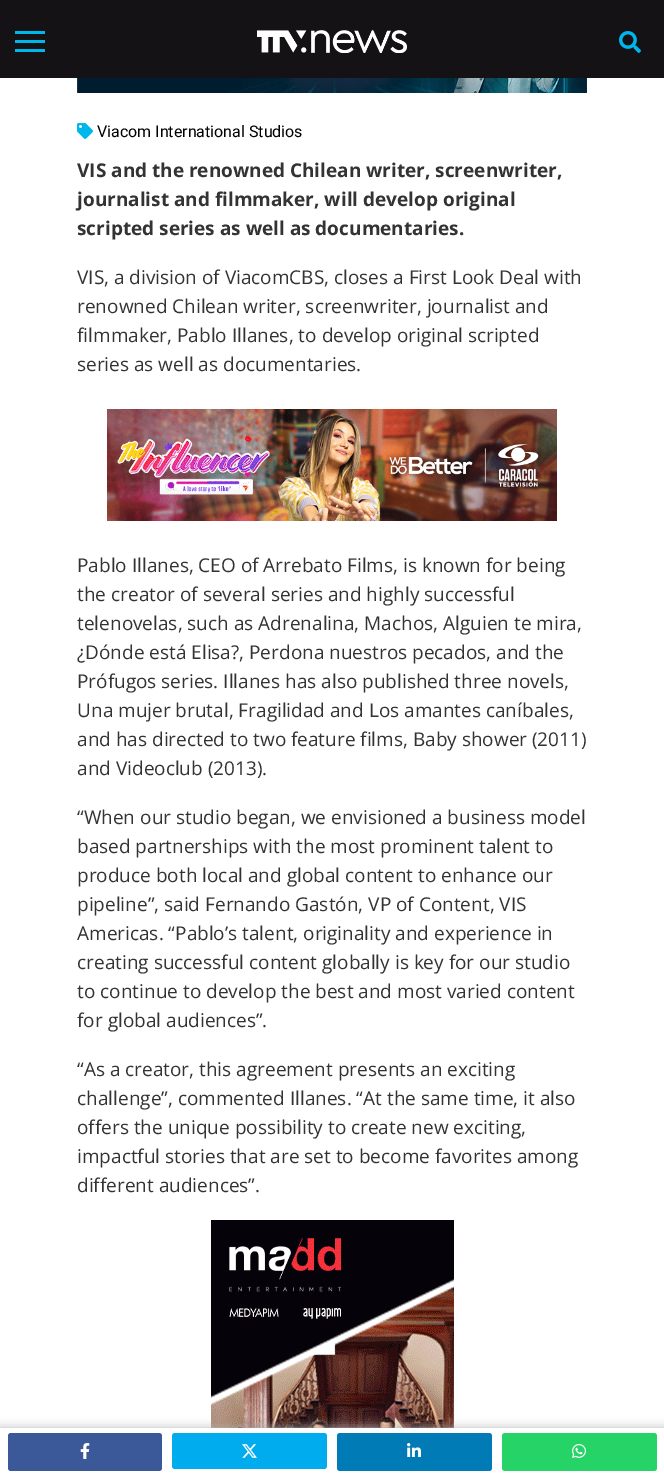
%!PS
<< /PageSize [664 1476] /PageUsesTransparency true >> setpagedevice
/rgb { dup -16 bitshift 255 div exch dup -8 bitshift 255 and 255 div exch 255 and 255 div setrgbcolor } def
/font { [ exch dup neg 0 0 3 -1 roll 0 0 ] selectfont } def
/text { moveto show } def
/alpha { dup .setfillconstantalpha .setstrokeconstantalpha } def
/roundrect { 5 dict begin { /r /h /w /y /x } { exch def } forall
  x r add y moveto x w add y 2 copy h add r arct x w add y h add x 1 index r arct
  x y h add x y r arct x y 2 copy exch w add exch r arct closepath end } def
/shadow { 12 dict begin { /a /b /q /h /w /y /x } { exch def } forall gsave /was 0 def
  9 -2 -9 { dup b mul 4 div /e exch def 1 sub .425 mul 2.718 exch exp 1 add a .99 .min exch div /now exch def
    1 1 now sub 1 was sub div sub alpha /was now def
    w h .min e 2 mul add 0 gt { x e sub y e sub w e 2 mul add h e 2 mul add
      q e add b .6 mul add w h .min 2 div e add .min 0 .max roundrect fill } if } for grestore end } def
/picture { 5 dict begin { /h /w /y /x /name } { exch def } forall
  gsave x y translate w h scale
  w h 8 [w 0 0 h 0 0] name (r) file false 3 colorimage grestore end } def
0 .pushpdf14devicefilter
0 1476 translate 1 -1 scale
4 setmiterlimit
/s1 { /Roboto-Regular 16 font 16#000000 rgb } def
/s2 { /OpenSans-Bold 19 font 16#333333 rgb } def
/s3 { /OpenSans-Regular 19 font 16#333333 rgb } def
16#FFFFFF rgb
0 0 664 1476 rectfill
16#151215 rgb
0 0 664 78 rectfill
(pic1.raw) 257 30 150 23 picture
(pic2.raw) 619 31 22 22 picture
16#00B7EB rgb
15 31 30 3 rectfill
15 40 30 3 rectfill
15 49 30 3 rectfill
(pic3.raw) 77 78 510 15 picture
(pic4.raw) 77 123 16 16 picture
s1
(Viacom International Studios) 97 137 text
s2
(VIS and the renowned Chilean writer, screenwriter,) 77 177 text
(journalist and filmmaker, will develop original) 77 206 text
(scripted series as well as documentaries.) 77 235 text
s3
(VIS, a division of ViacomCBS, closes a First Look Deal with) 77 284 text
(renowned Chilean writer, screenwriter, journalist and) 77 313 text
(filmmaker, Pablo Illanes, to develop original scripted) 77 342 text
(series as well as documentaries.) 77 371 text
(pic5.raw) 107 409 450 112 picture
(Pablo Illanes, CEO of Arrebato Films, is known for being) 77 572 text
(the creator of several series and highly successful) 77 601 text
(telenovelas, such as Adrenalina, Machos, Alguien te mira,) 77 630 text
(¿Dónde está Elisa?, Perdona nuestros pecados, and the) 77 659 text
(Prófugos series. Illanes has also published three novels,) 77 688 text
(Una mujer brutal, Fragilidad and Los amantes caníbales,) 77 717 text
(and has directed to two feature films, Baby shower \(2011\)) 77 746 text
(and Videoclub \(2013\).) 77 775 text
(“When our studio began, we envisioned a business model) 77 824 text
(based partnerships with the most prominent talent to) 77 853 text
(produce both local and global content to enhance our) 77 882 text
(pipeline”, said Fernando Gastón, VP of Content, VIS) 77 911 text
(Americas. “Pablo’s talent, originality and experience in) 77 940 text
(creating successful content globally is key for our studio) 77 969 text
(to continue to develop the best and most varied content) 77 998 text
(for global audiences”.) 77 1027 text
(“As a creator, this agreement presents an exciting) 77 1076 text
(challenge”, commented Illanes. “At the same time, it also) 77 1105 text
(offers the unique possibility to create new exciting,) 77 1134 text
(impactful stories that are set to become favorites among) 77 1163 text
(different audiences”.) 77 1192 text
(pic6.raw) 211 1220 243 208 picture
16#B9B9B9 rgb
0 1428 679 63 0 5 1 shadow
16#FFFFFF rgb
0 1428 664 48 rectfill
16#3B5998 rgb
8 1433 154 38 3 roundrect fill
(pic7.raw) 80 1443 10 16 picture
16#00ACED rgb
172 1433 155 36 3 roundrect fill
(pic8.raw) 242 1444 15 14 picture
16#007BB6 rgb
337 1433 155 38 3 roundrect fill
(pic9.raw) 407 1443 14 14 picture
16#25D366 rgb
502 1433 155 38 3 roundrect fill
(pic10.raw) 572 1444 14 14 picture
.poppdf14devicefilter showpage
